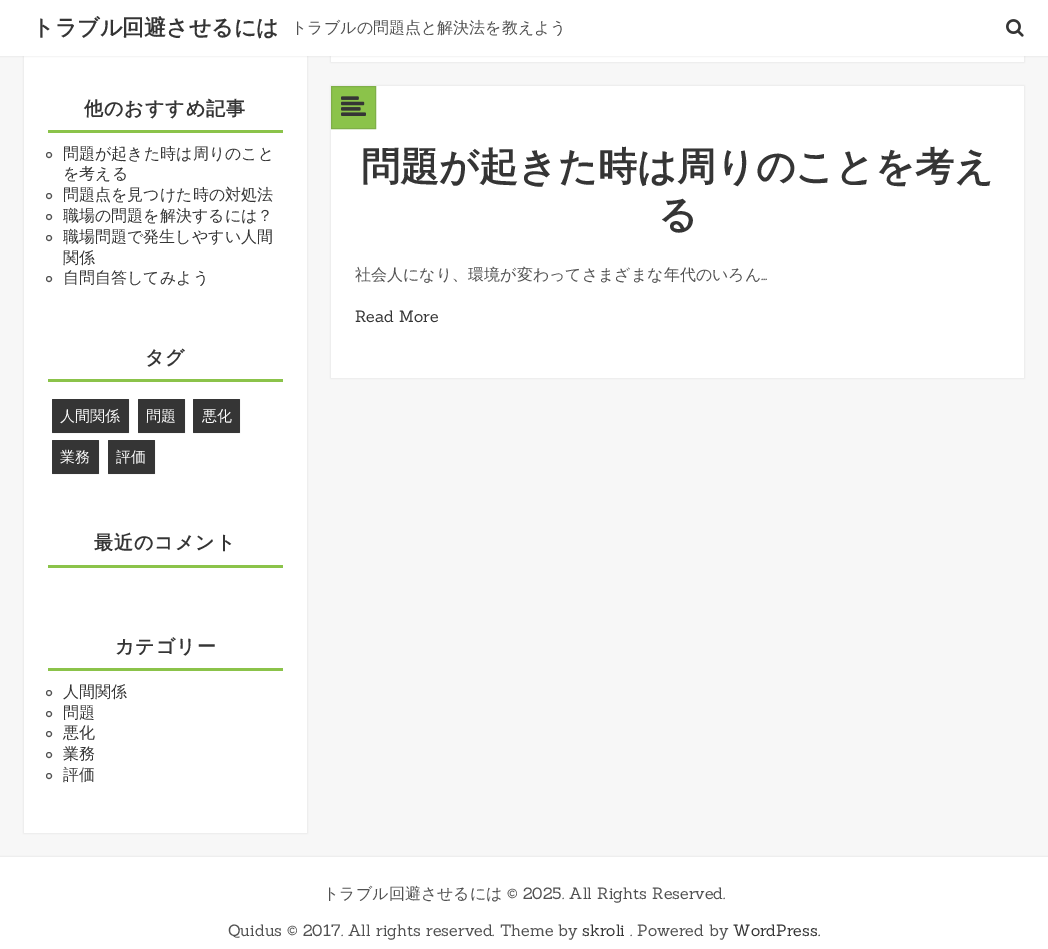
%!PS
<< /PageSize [1048 949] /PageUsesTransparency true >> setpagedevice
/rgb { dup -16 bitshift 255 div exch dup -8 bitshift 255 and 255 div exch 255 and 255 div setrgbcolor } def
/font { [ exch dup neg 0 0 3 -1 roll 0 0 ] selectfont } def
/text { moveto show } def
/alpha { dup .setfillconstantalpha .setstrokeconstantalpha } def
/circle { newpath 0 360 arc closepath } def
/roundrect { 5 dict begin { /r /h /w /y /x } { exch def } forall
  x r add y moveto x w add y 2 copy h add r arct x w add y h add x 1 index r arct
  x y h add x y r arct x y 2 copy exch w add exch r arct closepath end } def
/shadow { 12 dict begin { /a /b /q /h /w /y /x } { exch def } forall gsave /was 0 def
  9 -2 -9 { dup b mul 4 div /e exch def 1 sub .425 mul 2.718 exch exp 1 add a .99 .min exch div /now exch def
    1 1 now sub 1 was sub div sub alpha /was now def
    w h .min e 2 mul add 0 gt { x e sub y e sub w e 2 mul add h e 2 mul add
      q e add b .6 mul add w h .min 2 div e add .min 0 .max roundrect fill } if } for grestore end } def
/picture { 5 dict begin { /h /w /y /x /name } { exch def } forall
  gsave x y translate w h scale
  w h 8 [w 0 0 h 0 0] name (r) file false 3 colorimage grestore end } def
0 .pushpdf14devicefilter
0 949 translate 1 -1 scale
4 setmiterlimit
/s1 { /WenQuanYiZenHei-Bold 22 font 16#353535 rgb } def
/s2 { /WenQuanYiZenHei-Medium 16 font 16#515151 rgb } def
/s3 { /WenQuanYiZenHei-Medium 16 font 16#353535 rgb } def
/s4 { /WenQuanYiZenHei-Medium 15 font 16#FCFCFC rgb } def
/s5 { /WenQuanYiZenHei-Bold 39 font 16#353535 rgb } def
/s6 { /Sanchez-Regular 16 font 16#515151 rgb } def
/s7 { /Sanchez-Regular 16 font 16#353535 rgb } def
16#F7F7F7 rgb
0 0 1048 949 rectfill
16#323232 rgb
24 -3 283 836 0 1 0.15 shadow
16#FFFFFF rgb
24 56 283 777 rectfill
16#323232 rgb
331 -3 693 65 0 1 0.15 shadow
16#FFFFFF rgb
331 56 693 6 rectfill
16#323232 rgb
0 0 1048 56 0 1 0.15 shadow
16#FFFFFF rgb
0 0 1048 56 rectfill
s1
(トラブル回避させるには) 32 35 text
s2
(トラブルの問題点と解決法を教えよう) 291 33 text
(pic1.raw) 1006 19 18 18 picture
16#8BC34A rgb
48 130 235 3 rectfill
/WenQuanYiZenHei-Bold 19 font
16#353535 rgb
84 115 moveto 1 0 (他のおすすめ記事) ashow
16#515151 rgb
49 155 2.5 circle stroke
s3
(問題が起きた時は周りのこと) 63 159 text
(を考える) 63 179 text
16#515151 rgb
49 196 2.5 circle stroke
s3
(問題点を見つけた時の対処法) 63 200 text
16#515151 rgb
49 217 2.5 circle stroke
s3
(職場の問題を解決するには？) 63 221 text
16#515151 rgb
49 238 2.5 circle stroke
s3
(職場問題で発生しやすい人間) 63 242 text
(関係) 63 263 text
16#515151 rgb
49 279 2.5 circle stroke
s3
(自問自答してみよう) 63 283 text
16#8BC34A rgb
48 379 235 3 rectfill
/WenQuanYiZenHei-Bold 19 font
16#353535 rgb
145 364 moveto 1 0 (タグ) ashow
52 399 77 34 1 roundrect fill
0.15 alpha
16#3C3C3C rgb
52.5 399.5 76 33 rectstroke
1 alpha
s4
(人間関係) 60 421 text
16#353535 rgb
138 399 47 34 1 roundrect fill
0.15 alpha
16#3C3C3C rgb
138.5 399.5 46 33 rectstroke
1 alpha
s4
(問題) 146 421 text
16#353535 rgb
193 399 47 34 1 roundrect fill
0.15 alpha
16#3C3C3C rgb
193.5 399.5 46 33 rectstroke
1 alpha
s4
(悪化) 202 421 text
16#353535 rgb
52 440 47 34 1 roundrect fill
0.15 alpha
16#3C3C3C rgb
52.5 440.5 46 33 rectstroke
1 alpha
s4
(業務) 60 462 text
16#353535 rgb
108 440 47 34 1 roundrect fill
0.15 alpha
16#3C3C3C rgb
108.5 440.5 46 33 rectstroke
1 alpha
s4
(評価) 116 462 text
16#8BC34A rgb
48 565 235 3 rectfill
/WenQuanYiZenHei-Bold 19 font
16#353535 rgb
94 549 moveto 1 0 (最近のコメント) ashow
16#8BC34A rgb
48 668 235 3 rectfill
16#353535 rgb
115 653 moveto 1 0 (カテゴリー) ashow
16#515151 rgb
49 693 2.5 circle stroke
s3
(人間関係) 63 697 text
16#515151 rgb
49 714 2.5 circle stroke
s3
(問題) 63 718 text
16#515151 rgb
49 734 2.5 circle stroke
s3
(悪化) 63 738 text
16#515151 rgb
49 755 2.5 circle stroke
s3
(業務) 63 759 text
16#515151 rgb
49 776 2.5 circle stroke
s3
(評価) 63 780 text
16#323232 rgb
331 86 693 292 0 1 0.15 shadow
16#FFFFFF rgb
331 86 693 292 rectfill
16#8BC34A rgb
331.5 86.5 moveto 375.5 86.5 lineto 375.5 128.5 lineto 331.5 128.5 lineto closepath gsave fill grestore
16#7FAF48 rgb
stroke
(pic2.raw) 341 96 25 20 picture
s5
(問題が起きた時は周りのことを考え) 361 180 text
(る) 658 228 text
s2
(社会人になり、環境が変わってさまざまな年代のいろん) 355 280 text
s6
(…) 761 280 text
s7
(Read More) 355 322 text
16#323232 rgb
0 857 1048 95 0 1 0.15 shadow
16#FFFFFF rgb
0 857 1048 92 rectfill
s2
(トラブル回避させるには) 323 899 text
s6
(© 2025. All Rights Reserved.) 507 899 text
(Quidus © 2017. All rights reserved. Theme by) 228 936 text
s7
(skroli) 582 936 text
s6
(. Powered by) 630 936 text
s7
(WordPress.) 733 936 text
.poppdf14devicefilter showpage
